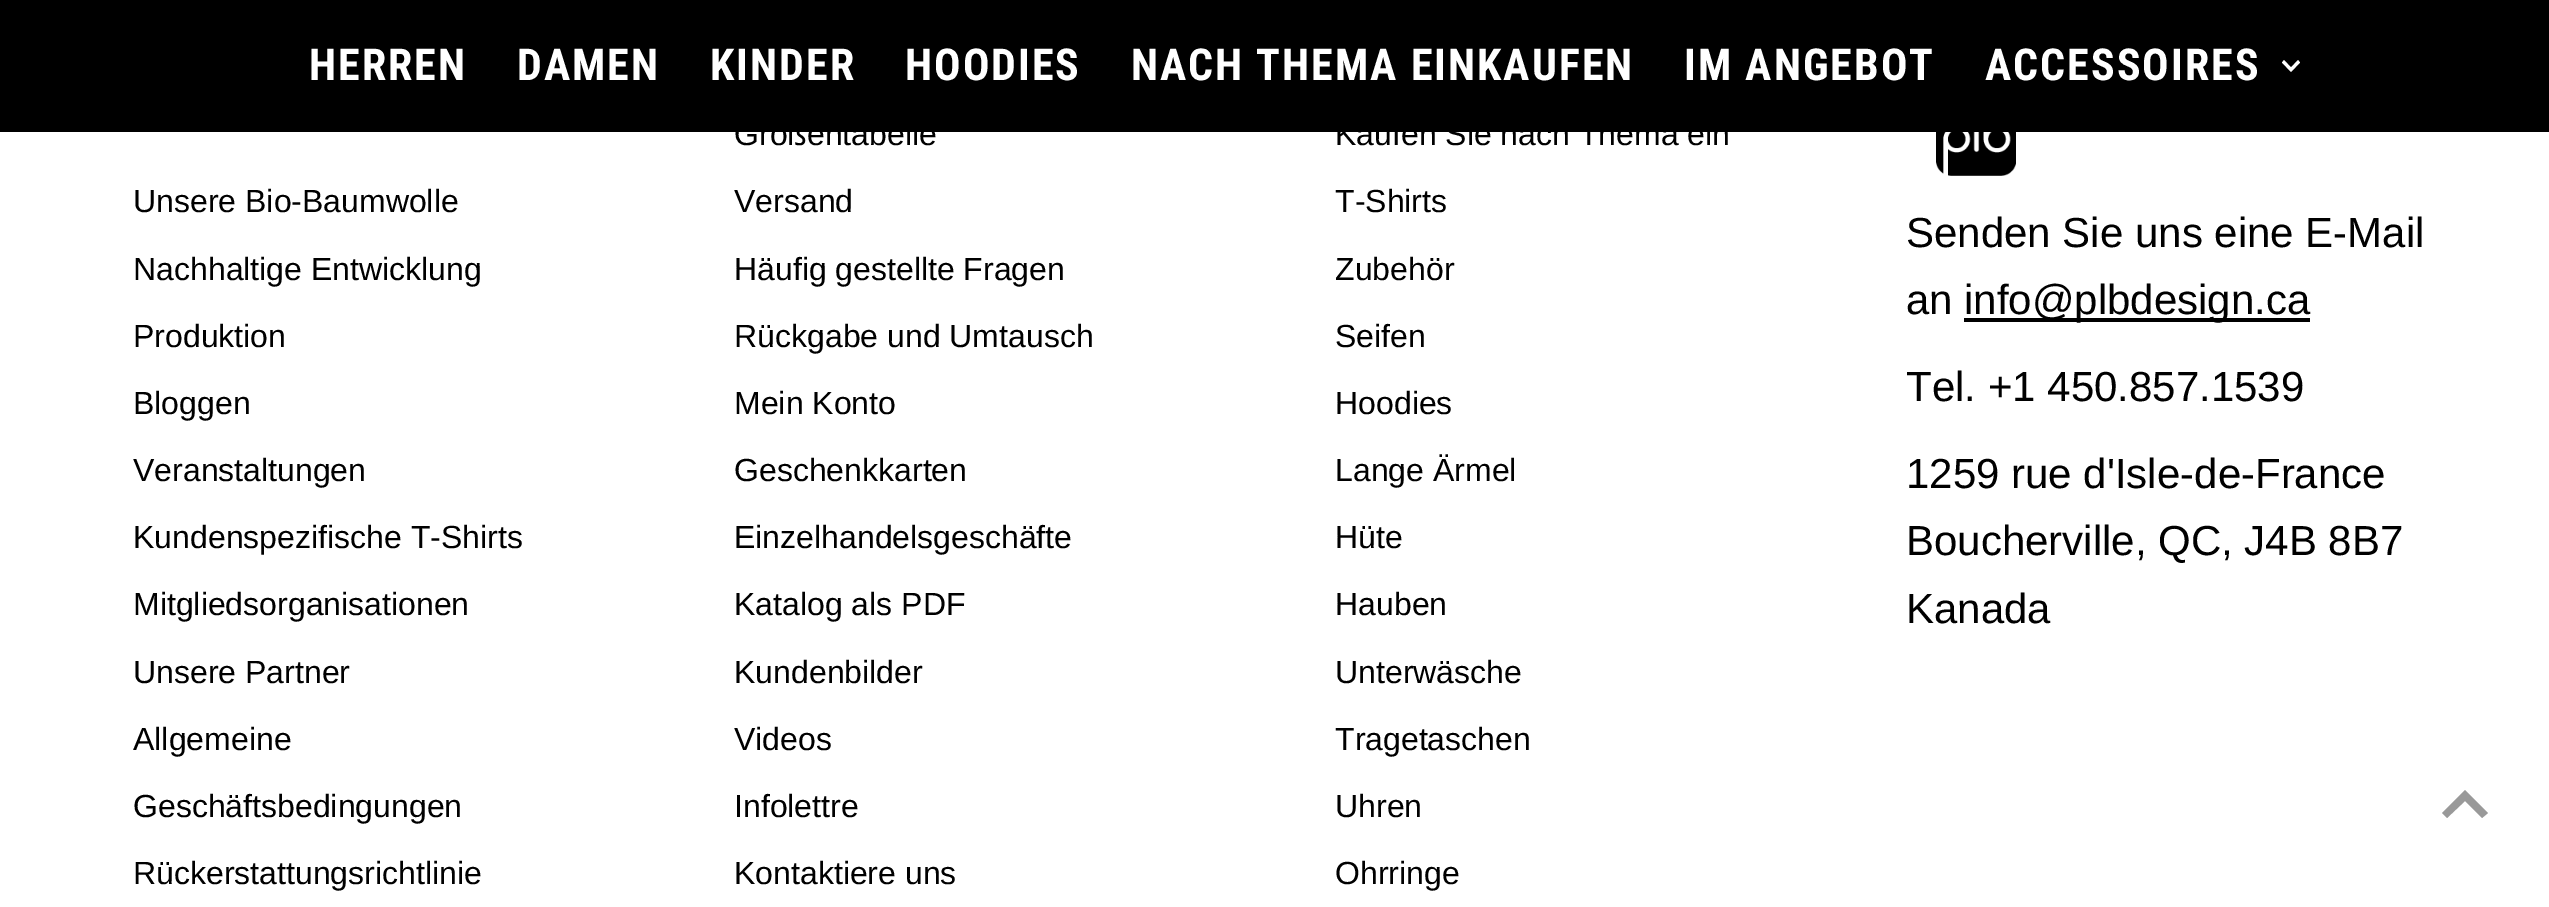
%!PS
<< /PageSize [2549 907] >> setpagedevice
/rgb { dup -16 bitshift 255 div exch dup -8 bitshift 255 and 255 div exch 255 and 255 div setrgbcolor } def
/font { [ exch dup neg 0 0 3 -1 roll 0 0 ] selectfont } def
/text { moveto show } def
/picture { 5 dict begin { /h /w /y /x /name } { exch def } forall
  gsave x y translate w h scale
  w h 8 [w 0 0 h 0 0] name (r) file false 3 colorimage grestore end } def
0 907 translate 1 -1 scale
4 setmiterlimit
/s1 { /LiberationSans-Regular 32 font 16#000000 rgb } def
/s2 { /LiberationSans-Regular 42 font 16#000000 rgb } def
16#FFFFFF rgb
0 0 2549 907 rectfill
16#000000 rgb
0 0 2549 132 rectfill
/RobotoCondensed-Bold 44 font
16#FFFFFF rgb
309 80 moveto 2 0 (HERREN) ashow
517 80 moveto 2 0 (DAMEN) ashow
710 80 moveto 2 0 (KINDER) ashow
905 80 moveto 2 0 (HOODIES) ashow
1131 80 moveto 2 0 (NACH THEMA EINKAUFEN) ashow
1684 80 moveto 2 0 (IM ANGEBOT) ashow
1985 80 moveto 2 0 (ACCESSOIRES) ashow
2298 60 moveto 2291 67.5 lineto 2284 60 lineto 2282 62.5 lineto 2291 72 lineto 2300 62.5 lineto closepath fill
s1
(Unsere Bio-Baumwolle) 133 212 text
(Nachhaltige Entwicklung) 133 280 text
(Produktion) 133 347 text
(Bloggen) 133 414 text
(Veranstaltungen) 133 481 text
(Kundenspezifische T-Shirts) 133 548 text
(Mitgliedsorganisationen) 133 615 text
(Unsere Partner) 133 683 text
(Allgemeine) 133 750 text
(Geschäftsbedingungen) 133 817 text
(Rückerstattungsrichtlinie) 133 884 text
(Größentabelle) 734 145 text
(Versand) 734 212 text
(Häufig gestellte Fragen) 734 280 text
(Rückgabe und Umtausch) 734 347 text
(Mein Konto) 734 414 text
(Geschenkkarten) 734 481 text
(Einzelhandelsgeschäfte) 734 548 text
(Katalog als PDF) 734 615 text
(Kundenbilder) 734 683 text
(Videos) 734 750 text
(Infolettre) 734 817 text
(Kontaktiere uns) 734 884 text
(Kaufen Sie nach Thema ein) 1335 145 text
(T-Shirts) 1335 212 text
(Zubehör) 1335 280 text
(Seifen) 1335 347 text
(Hoodies) 1335 414 text
(Lange Ärmel) 1335 481 text
(Hüte) 1335 548 text
(Hauben) 1335 615 text
(Unterwäsche) 1335 683 text
(Tragetaschen) 1335 750 text
(Uhren) 1335 817 text
(Ohrringe) 1335 884 text
(pic1.raw) 1936 132 80 44 picture
s2
(Senden Sie uns eine E-Mail) 1906 247 text
(an) 1906 314 text
1964 318 346 4 rectfill
(info@plbdesign.ca) 1964 314 text
(Tel. +1 450.857.1539) 1906 401 text
(1259 rue d'Isle-de-France) 1906 488 text
(Boucherville, QC, J4B 8B7) 1906 555 text
(Kanada) 1906 623 text
16#999999 rgb
2465 790 moveto 2442 813 lineto 2447 818 lineto 2465 801 lineto 2482 818 lineto 2488 813 lineto closepath fill
showpage
